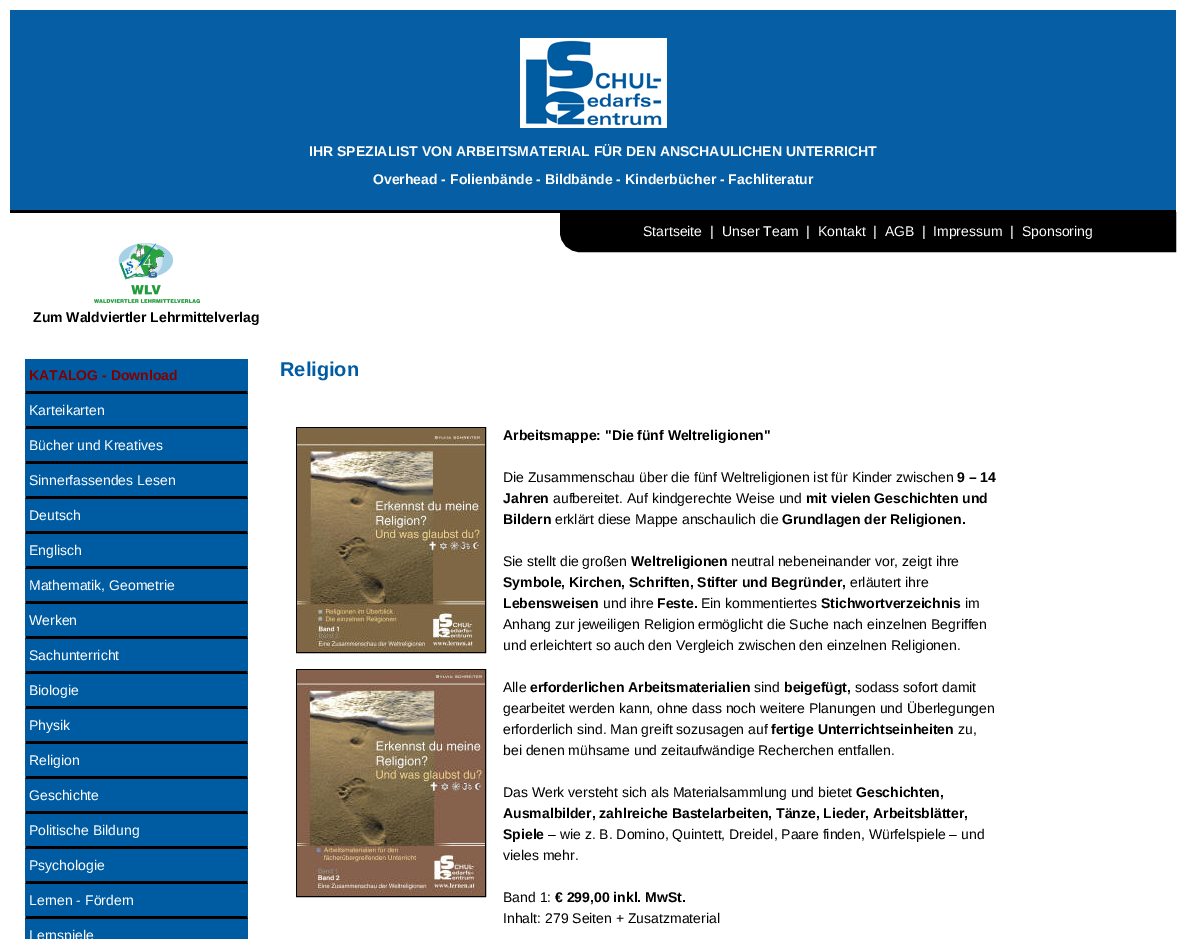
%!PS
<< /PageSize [1186 939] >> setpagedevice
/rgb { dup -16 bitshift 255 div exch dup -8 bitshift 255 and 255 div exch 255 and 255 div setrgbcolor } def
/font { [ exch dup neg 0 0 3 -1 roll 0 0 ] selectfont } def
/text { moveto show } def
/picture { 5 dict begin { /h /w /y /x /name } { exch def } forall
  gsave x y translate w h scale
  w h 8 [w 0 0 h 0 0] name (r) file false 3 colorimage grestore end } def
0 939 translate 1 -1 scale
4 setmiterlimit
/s1 { /LiberationSans-Bold 14 font 16#FFFFFF rgb } def
/s2 { /LiberationSans-Regular 14 font 16#FFFFFF rgb } def
/s3 { /LiberationSans-Bold 14 font 16#000000 rgb } def
/s4 { /LiberationSans-Bold 14 font 16#800000 rgb } def
/s5 { /LiberationSans-Bold 20 font 16#005CA2 rgb } def
/s6 { /LiberationSans-Regular 14 font 16#000000 rgb } def
16#FFFFFF rgb
0 0 1186 939 rectfill
16#065FA4 rgb
10 10 1166 200 rectfill
16#000000 rgb
10 210 1166 3 rectfill
(pic1.raw) 520 38 147 90 picture
s1
(IHR SPEZIALIST VON ARBEITSMATERIAL FÜR DEN ANSCHAULICHEN UNTERRICHT) 309 156 text
(Overhead - Folienbände - Bildbände - Kinderbücher - Fachliteratur) 373 184 text
16#000000 rgb
564 216 moveto 1172 216 lineto 1172 248 lineto 580 248 lineto 571 248 564 241 564 232 curveto closepath gsave fill grestore
8 setlinewidth
stroke
s2
(Startseite) 643 236 text
(|) 710 236 text
(Unser Team) 722 236 text
(|) 806 236 text
(Kontakt) 818 236 text
(|) 873 236 text
(AGB) 885 236 text
(|) 922 236 text
(Impressum) 933 236 text
(|) 1010 236 text
(Sponsoring) 1022 236 text
(pic2.raw) 94 243 106 60 picture
s3
(Zum Waldviertler Lehrmittelverlag) 33 322 text
16#005CA2 rgb
26 360 221 31 rectfill
25 359 223 1 rectfill
248 359 moveto 248 394 lineto 247 391 lineto 247 360 lineto closepath fill
16#000000 rgb
248 394 moveto 25 394 lineto 26 391 lineto 247 391 lineto closepath fill
16#005CA2 rgb
25 394 moveto 25 359 lineto 26 360 lineto 26 391 lineto closepath fill
s4
(KATALOG - Download) 29 380 text
16#005CA2 rgb
26 395 221 31 rectfill
25 394 223 1 rectfill
248 394 moveto 248 429 lineto 247 426 lineto 247 395 lineto closepath fill
16#000000 rgb
248 429 moveto 25 429 lineto 26 426 lineto 247 426 lineto closepath fill
16#005CA2 rgb
25 429 moveto 25 394 lineto 26 395 lineto 26 426 lineto closepath fill
s2
(Karteikarten) 29 415 text
16#005CA2 rgb
26 430 221 31 rectfill
25 429 223 1 rectfill
248 429 moveto 248 464 lineto 247 461 lineto 247 430 lineto closepath fill
16#000000 rgb
248 464 moveto 25 464 lineto 26 461 lineto 247 461 lineto closepath fill
16#005CA2 rgb
25 464 moveto 25 429 lineto 26 430 lineto 26 461 lineto closepath fill
s2
(Bücher und Kreatives) 29 450 text
16#005CA2 rgb
26 465 221 31 rectfill
25 464 223 1 rectfill
248 464 moveto 248 499 lineto 247 496 lineto 247 465 lineto closepath fill
16#000000 rgb
248 499 moveto 25 499 lineto 26 496 lineto 247 496 lineto closepath fill
16#005CA2 rgb
25 499 moveto 25 464 lineto 26 465 lineto 26 496 lineto closepath fill
s2
(Sinnerfassendes Lesen) 29 485 text
16#005CA2 rgb
26 500 221 31 rectfill
25 499 223 1 rectfill
248 499 moveto 248 534 lineto 247 531 lineto 247 500 lineto closepath fill
16#000000 rgb
248 534 moveto 25 534 lineto 26 531 lineto 247 531 lineto closepath fill
16#005CA2 rgb
25 534 moveto 25 499 lineto 26 500 lineto 26 531 lineto closepath fill
s2
(Deutsch) 29 520 text
16#005CA2 rgb
26 535 221 31 rectfill
25 534 223 1 rectfill
248 534 moveto 248 569 lineto 247 566 lineto 247 535 lineto closepath fill
16#000000 rgb
248 569 moveto 25 569 lineto 26 566 lineto 247 566 lineto closepath fill
16#005CA2 rgb
25 569 moveto 25 534 lineto 26 535 lineto 26 566 lineto closepath fill
s2
(Englisch) 29 555 text
16#005CA2 rgb
26 570 221 31 rectfill
25 569 223 1 rectfill
248 569 moveto 248 604 lineto 247 601 lineto 247 570 lineto closepath fill
16#000000 rgb
248 604 moveto 25 604 lineto 26 601 lineto 247 601 lineto closepath fill
16#005CA2 rgb
25 604 moveto 25 569 lineto 26 570 lineto 26 601 lineto closepath fill
s2
(Mathematik, Geometrie) 29 590 text
16#005CA2 rgb
26 605 221 31 rectfill
25 604 223 1 rectfill
248 604 moveto 248 639 lineto 247 636 lineto 247 605 lineto closepath fill
16#000000 rgb
248 639 moveto 25 639 lineto 26 636 lineto 247 636 lineto closepath fill
16#005CA2 rgb
25 639 moveto 25 604 lineto 26 605 lineto 26 636 lineto closepath fill
s2
(Werken) 29 625 text
16#005CA2 rgb
26 640 221 31 rectfill
25 639 223 1 rectfill
248 639 moveto 248 674 lineto 247 671 lineto 247 640 lineto closepath fill
16#000000 rgb
248 674 moveto 25 674 lineto 26 671 lineto 247 671 lineto closepath fill
16#005CA2 rgb
25 674 moveto 25 639 lineto 26 640 lineto 26 671 lineto closepath fill
s2
(Sachunterricht) 29 660 text
16#005CA2 rgb
26 675 221 31 rectfill
25 674 223 1 rectfill
248 674 moveto 248 709 lineto 247 706 lineto 247 675 lineto closepath fill
16#000000 rgb
248 709 moveto 25 709 lineto 26 706 lineto 247 706 lineto closepath fill
16#005CA2 rgb
25 709 moveto 25 674 lineto 26 675 lineto 26 706 lineto closepath fill
s2
(Biologie) 29 695 text
16#005CA2 rgb
26 710 221 31 rectfill
25 709 223 1 rectfill
248 709 moveto 248 744 lineto 247 741 lineto 247 710 lineto closepath fill
16#000000 rgb
248 744 moveto 25 744 lineto 26 741 lineto 247 741 lineto closepath fill
16#005CA2 rgb
25 744 moveto 25 709 lineto 26 710 lineto 26 741 lineto closepath fill
s2
(Physik) 29 730 text
16#005CA2 rgb
26 745 221 31 rectfill
25 744 223 1 rectfill
248 744 moveto 248 779 lineto 247 776 lineto 247 745 lineto closepath fill
16#000000 rgb
248 779 moveto 25 779 lineto 26 776 lineto 247 776 lineto closepath fill
16#005CA2 rgb
25 779 moveto 25 744 lineto 26 745 lineto 26 776 lineto closepath fill
s2
(Religion) 29 765 text
16#005CA2 rgb
26 780 221 31 rectfill
25 779 223 1 rectfill
248 779 moveto 248 814 lineto 247 811 lineto 247 780 lineto closepath fill
16#000000 rgb
248 814 moveto 25 814 lineto 26 811 lineto 247 811 lineto closepath fill
16#005CA2 rgb
25 814 moveto 25 779 lineto 26 780 lineto 26 811 lineto closepath fill
s2
(Geschichte) 29 800 text
16#005CA2 rgb
26 815 221 31 rectfill
25 814 223 1 rectfill
248 814 moveto 248 849 lineto 247 846 lineto 247 815 lineto closepath fill
16#000000 rgb
248 849 moveto 25 849 lineto 26 846 lineto 247 846 lineto closepath fill
16#005CA2 rgb
25 849 moveto 25 814 lineto 26 815 lineto 26 846 lineto closepath fill
s2
(Politische Bildung) 29 835 text
16#005CA2 rgb
26 850 221 31 rectfill
25 849 223 1 rectfill
248 849 moveto 248 884 lineto 247 881 lineto 247 850 lineto closepath fill
16#000000 rgb
248 884 moveto 25 884 lineto 26 881 lineto 247 881 lineto closepath fill
16#005CA2 rgb
25 884 moveto 25 849 lineto 26 850 lineto 26 881 lineto closepath fill
s2
(Psychologie) 29 870 text
16#005CA2 rgb
26 885 221 31 rectfill
25 884 223 1 rectfill
248 884 moveto 248 919 lineto 247 916 lineto 247 885 lineto closepath fill
16#000000 rgb
248 919 moveto 25 919 lineto 26 916 lineto 247 916 lineto closepath fill
16#005CA2 rgb
25 919 moveto 25 884 lineto 26 885 lineto 26 916 lineto closepath fill
s2
(Lernen - Fördern) 29 905 text
16#005CA2 rgb
26 920 221 19 rectfill
25 919 223 1 rectfill
248 919 moveto 248 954 lineto 247 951 lineto 247 920 lineto closepath fill
25 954 moveto 25 919 lineto 26 920 lineto 26 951 lineto closepath fill
s2
(Lernspiele) 29 940 text
s5
(Religion) 280 376 text
16#000000 rgb
1 setlinewidth
296.5 427.5 189 225 rectstroke
(pic3.raw) 297 428 188 224 picture
296.5 669.5 189 227 rectstroke
(pic4.raw) 297 670 188 226 picture
s3
(Arbeitsmappe: "Die fünf Weltreligionen") 503 440 text
s6
(Die Zusammenschau über die fünf Weltreligionen ist für Kinder zwischen) 503 482 text
s3
(9 – 14) 957 482 text
(Jahren) 503 503 text
s6
(aufbereitet. Auf kindgerechte Weise und) 553 503 text
s3
(mit vielen Geschichten und) 806 503 text
(Bildern) 503 524 text
s6
(erklärt diese Mappe anschaulich die) 555 524 text
s3
(Grundlagen der Religionen.) 782 524 text
s6
(Sie stellt die großen) 503 566 text
s3
(Weltreligionen) 631 566 text
s6
(neutral nebeneinander vor, zeigt ihre) 731 566 text
s3
(Symbole, Kirchen, Schriften, Stifter und Begründer,) 503 587 text
s6
(erläutert ihre) 850 587 text
s3
(Lebensweisen) 503 608 text
s6
(und ihre) 603 608 text
s3
(Feste.) 657 608 text
s6
(Ein kommentiertes) 701 608 text
s3
(Stichwortverzeichnis) 821 608 text
s6
(im) 965 608 text
(Anhang zur jeweiligen Religion ermöglicht die Suche nach einzelnen Begriffen) 503 629 text
(und erleichtert so auch den Vergleich zwischen den einzelnen Religionen.) 503 650 text
(Alle) 503 692 text
s3
(erforderlichen Arbeitsmaterialien) 530 692 text
s6
(sind) 754 692 text
s3
(beigefügt,) 784 692 text
s6
(sodass sofort damit) 855 692 text
(gearbeitet werden kann, ohne dass noch weitere Planungen und Überlegungen) 503 713 text
(erforderlich sind. Man greift sozusagen auf) 503 734 text
s3
(fertige Unterrichtseinheiten) 771 734 text
s6
(zu,) 958 734 text
(bei denen mühsame und zeitaufwändige Recherchen entfallen.) 503 755 text
(Das Werk versteht sich als Materialsammlung und bietet) 503 797 text
s3
(Geschichten,) 856 797 text
(Ausmalbilder, zahlreiche Bastelarbeiten, Tänze, Lieder, Arbeitsblätter,) 503 818 text
(Spiele) 503 839 text
s6
(– wie z. B. Domino, Quintett, Dreidel, Paare finden, Würfelspiele – und) 548 839 text
(vieles mehr.) 503 860 text
(Band 1:) 503 902 text
s3
(€ 299,00 inkl. MwSt.) 555 902 text
s6
(Inhalt: 279 Seiten + Zusatzmaterial) 503 923 text
showpage
